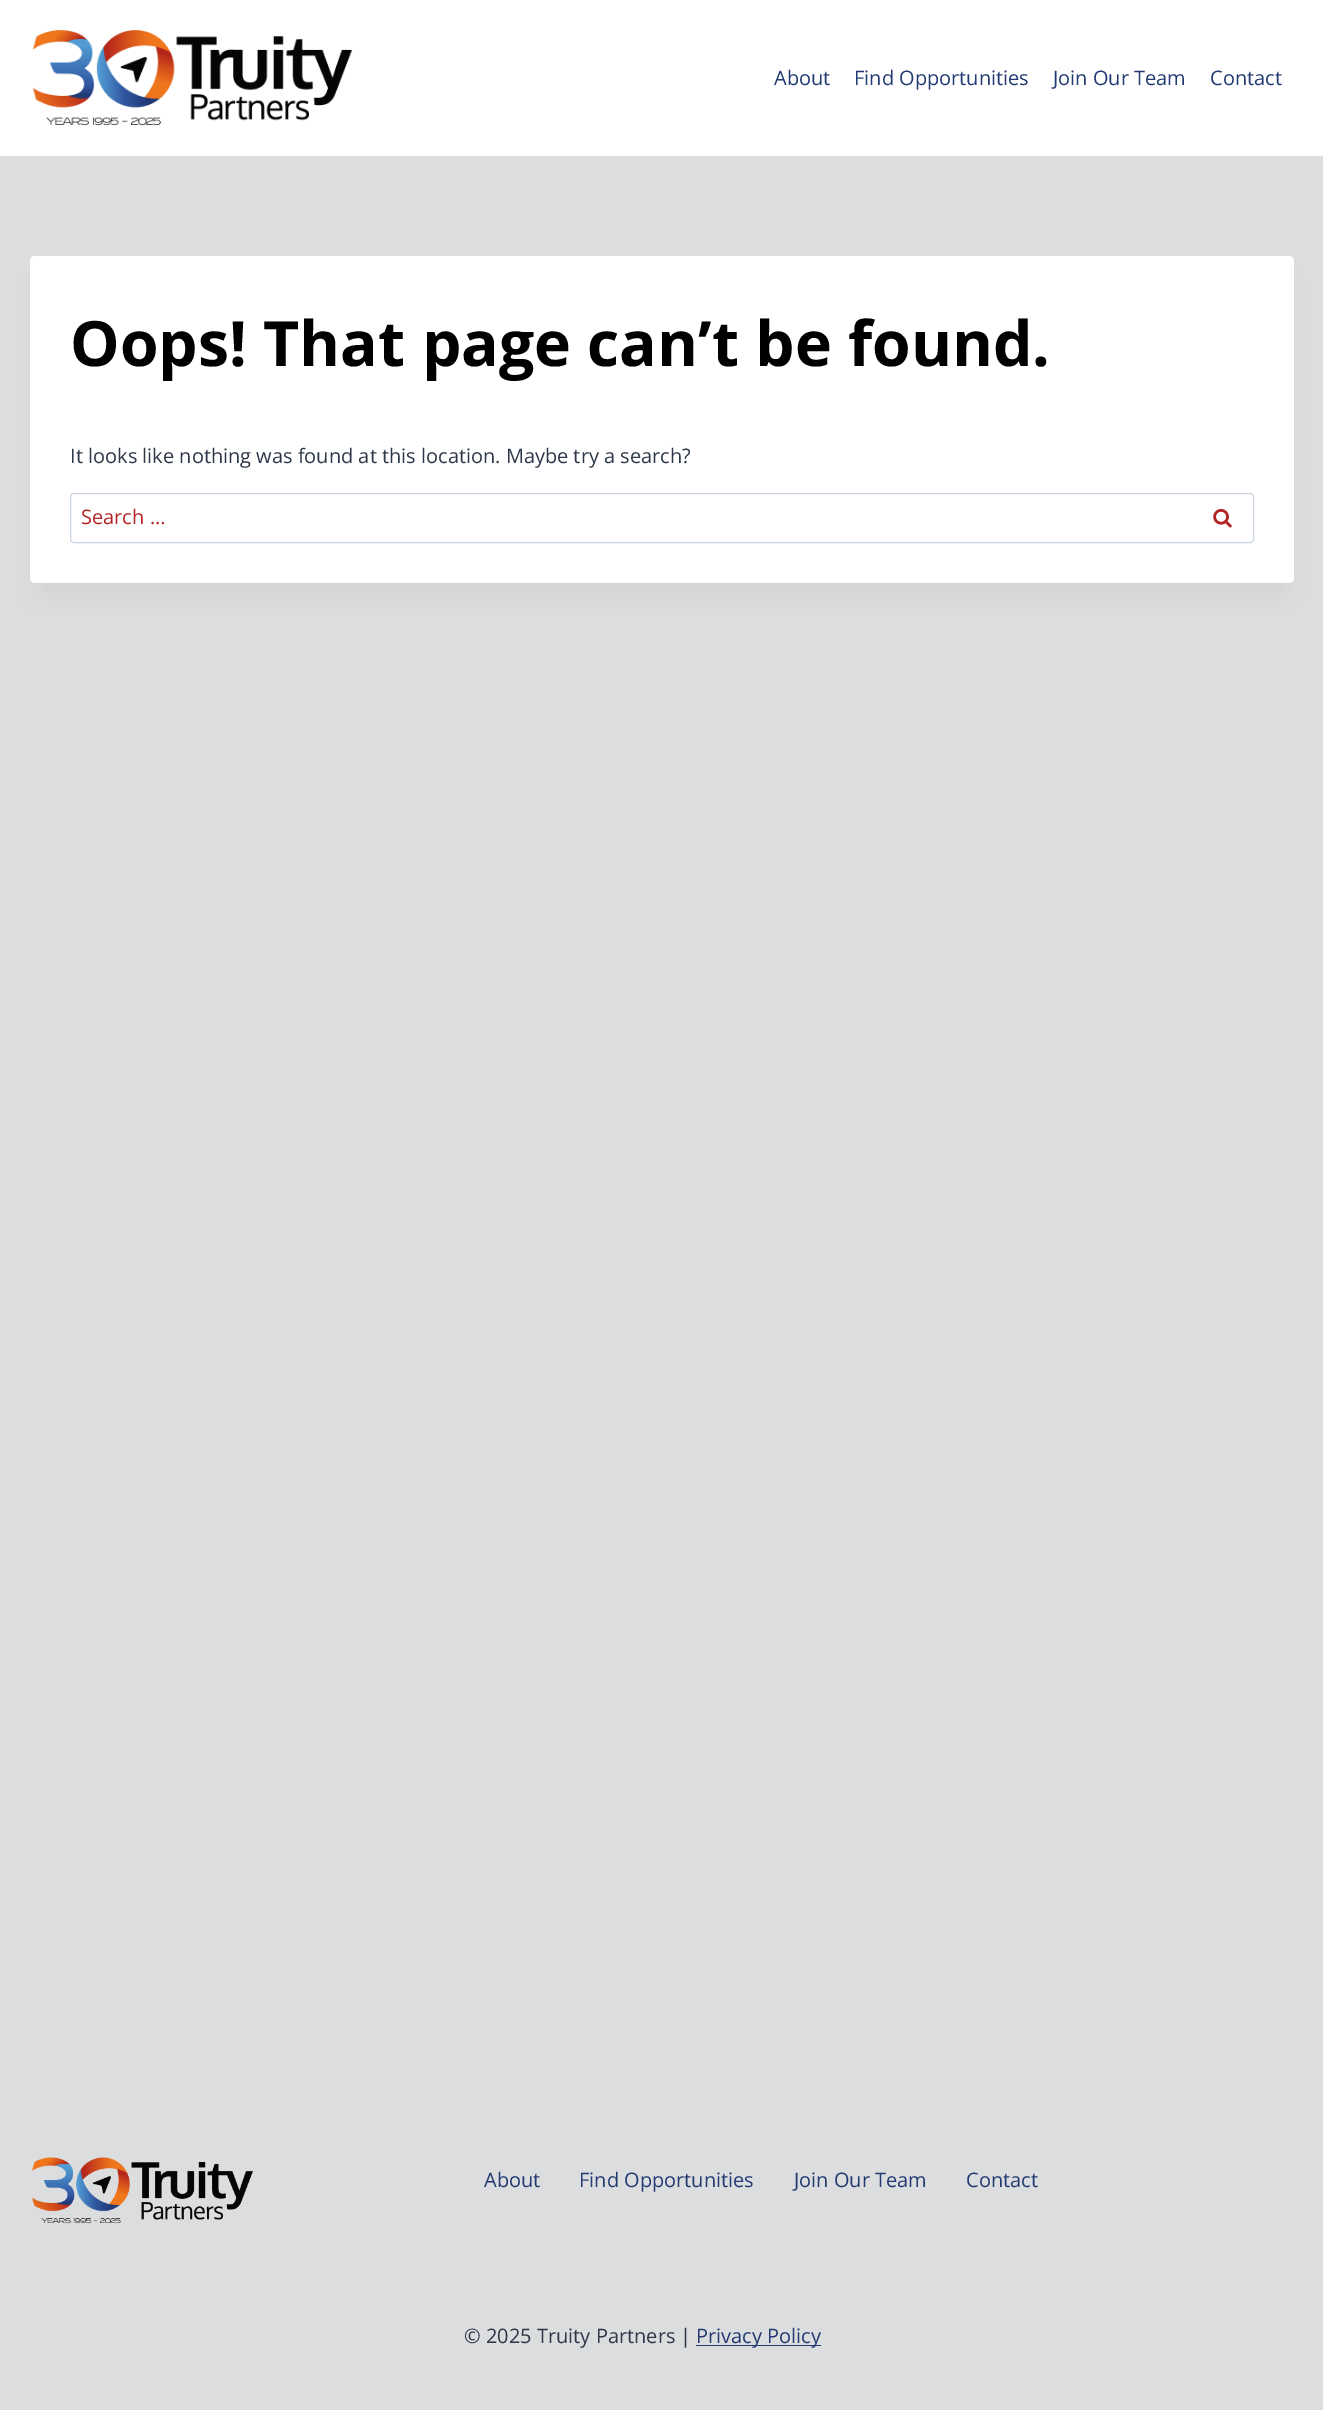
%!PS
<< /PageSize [1323 2410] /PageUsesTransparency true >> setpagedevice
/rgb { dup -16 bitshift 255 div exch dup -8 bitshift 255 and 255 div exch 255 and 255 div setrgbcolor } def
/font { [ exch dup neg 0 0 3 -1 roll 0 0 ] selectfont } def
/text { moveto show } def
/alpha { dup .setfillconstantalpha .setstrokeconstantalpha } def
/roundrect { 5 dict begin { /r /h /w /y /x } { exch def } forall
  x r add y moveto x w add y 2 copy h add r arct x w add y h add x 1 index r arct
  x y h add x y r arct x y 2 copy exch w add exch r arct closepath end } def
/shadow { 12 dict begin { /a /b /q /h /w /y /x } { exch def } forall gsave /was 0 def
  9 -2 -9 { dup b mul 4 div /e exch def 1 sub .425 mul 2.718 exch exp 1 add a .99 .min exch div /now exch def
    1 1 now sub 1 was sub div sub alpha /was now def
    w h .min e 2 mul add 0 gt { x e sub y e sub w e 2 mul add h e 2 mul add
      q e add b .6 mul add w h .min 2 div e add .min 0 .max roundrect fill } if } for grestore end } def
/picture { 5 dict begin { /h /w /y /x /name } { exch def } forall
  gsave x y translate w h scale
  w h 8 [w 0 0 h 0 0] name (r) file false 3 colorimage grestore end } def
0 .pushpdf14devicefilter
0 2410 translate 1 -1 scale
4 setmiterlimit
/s1 { /OpenSans-Regular 20 font 16#223972 rgb } def
/s2 { /OpenSans-Bold 62.5 font 16#000000 rgb } def
/s3 { /OpenSans-Regular 20 font 16#2D3748 rgb } def
/s4 { /OpenSans-Regular 20 font 16#B12324 rgb } def
16#DCDDDE rgb
0 0 1323 2410 rectfill
16#FFFFFF rgb
0 0 1323 156 rectfill
(pic1.raw) 32 30 321 96 picture
s1
(About) 774 85 text
(Find Opportunities) 854 85 text
(Join Our Team) 1053 85 text
(Contact) 1210 85 text
16#000000 rgb
43 288 1238 301 0 15.5 0.05 shadow
16#FFFFFF rgb
30 256 1264 327 5 roundrect fill
s2
(Oops! That page can’t be found.) 70 366 text
s3
(It looks like nothing was found at this location. Maybe try a search?) 70 463 text
16#CBD5E0 rgb
70.5 493.5 1183 49 3.5 roundrect stroke
s4
(Search …) 81 524 text
(pic2.raw) 1213 508 19 20 picture
(pic3.raw) 32 2157 221 67 picture
s1
(About) 484 2187 text
(Find Opportunities) 579 2187 text
(Join Our Team) 794 2187 text
(Contact) 966 2187 text
s3
(© 2025 Truity Partners |) 464 2343 text
16#223972 rgb
696 2345 125 1 rectfill
(Privacy Policy) 696 2343 text
.poppdf14devicefilter showpage
